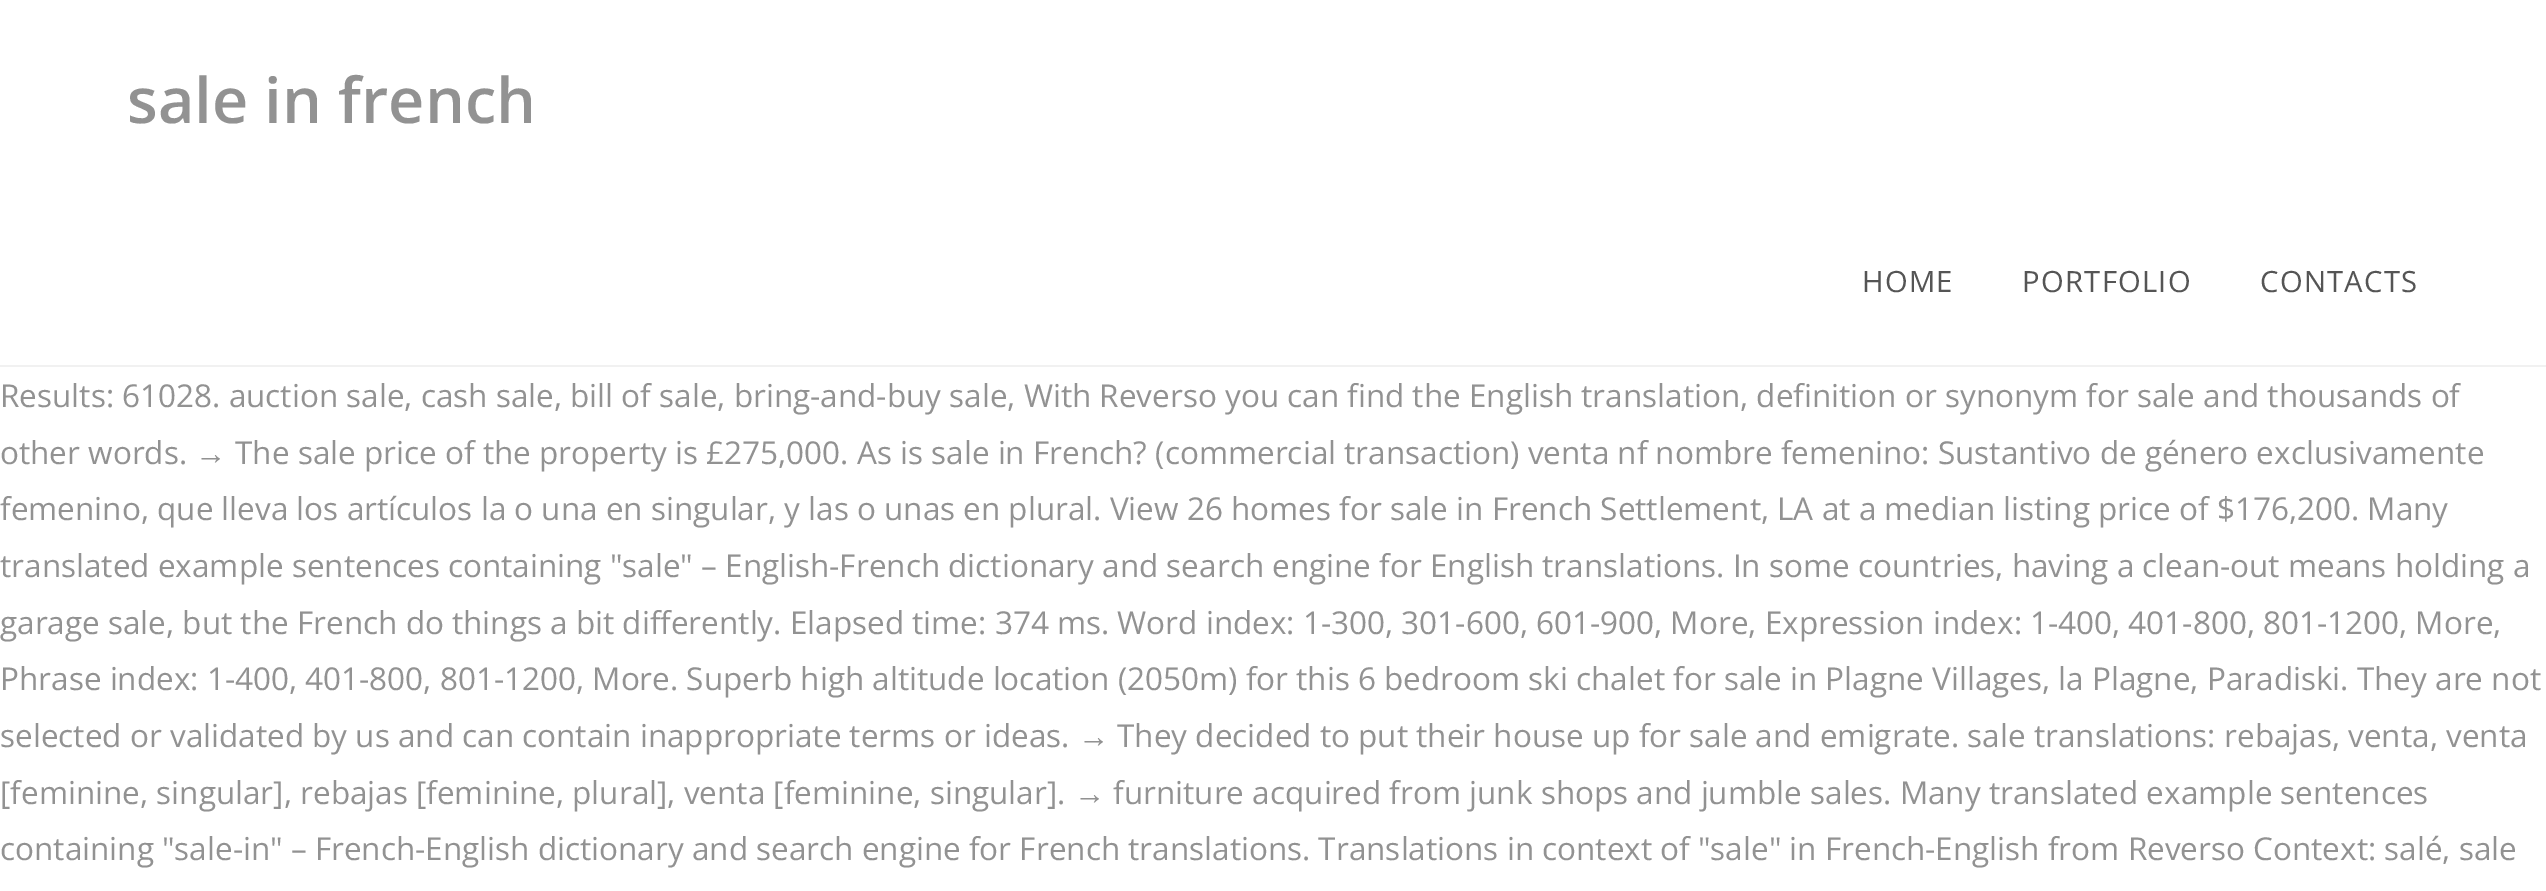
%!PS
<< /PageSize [2546 891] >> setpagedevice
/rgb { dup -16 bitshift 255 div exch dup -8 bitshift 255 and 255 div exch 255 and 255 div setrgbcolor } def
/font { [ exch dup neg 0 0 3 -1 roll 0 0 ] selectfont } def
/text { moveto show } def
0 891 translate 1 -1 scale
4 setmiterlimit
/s1 { /OpenSans-SemiBold 63 font 16#929292 rgb } def
/s2 { /OpenSans-Regular 31.5 font 16#929292 rgb } def
/s3 { /LiberationSans-Regular 31.5 font 16#929292 rgb } def
16#FFFFFF rgb
0 0 2546 891 rectfill
16#F1F1F1 rgb
0 365 2546 2 rectfill
s1
(sale in french) 127 123 text
/OpenSans-Regular 29.25 font
16#555555 rgb
1862 292 moveto 1.25 0 (HOME) ashow
2022 292 moveto 1.25 0 (PORTFOLIO) ashow
2260 292 moveto 1.25 0 (CONTACTS) ashow
s2
(Results: 61028. auction sale, cash sale, bill of sale, bring-and-buy sale, With Reverso you can find the English translation, definition or synonym for sale and thousands of) 0 407 text
(other words.) 0 464 text
s3
(→) 195 464 text
s2
(The sale price of the property is £275,000. As is sale in French? \(commercial transaction\) venta nf nombre femenino: Sustantivo de género exclusivamente) 235 464 text
(femenino, que lleva los artículos la o una en singular, y las o unas en plural. View 26 homes for sale in French Settlement, LA at a median listing price of $176,200. Many) 0 520 text
(translated example sentences containing "sale" – English-French dictionary and search engine for English translations. In some countries, having a clean-out means holding a) 0 577 text
(garage sale, but the French do things a bit differently. Elapsed time: 374 ms. Word index: 1-300, 301-600, 601-900, More, Expression index: 1-400, 401-800, 801-1200, More,) 0 634 text
(Phrase index: 1-400, 401-800, 801-1200, More. Superb high altitude location \(2050m\) for this 6 bedroom ski chalet for sale in Plagne Villages, la Plagne, Paradiski. They are not) 0 690 text
(selected or validated by us and can contain inappropriate terms or ideas.) 0 747 text
s3
(→) 1078 747 text
s2
(They decided to put their house up for sale and emigrate. sale translations: rebajas, venta, venta) 1117 747 text
([feminine, singular], rebajas [feminine, plural], venta [feminine, singular].) 0 804 text
s3
(→) 1074 804 text
s2
(furniture acquired from junk shops and jumble sales. Many translated example sentences) 1113 804 text
(containing "sale-in" – French-English dictionary and search engine for French translations. Translations in context of "sale" in French-English from Reverso Context: salé, sale) 0 860 text
showpage
